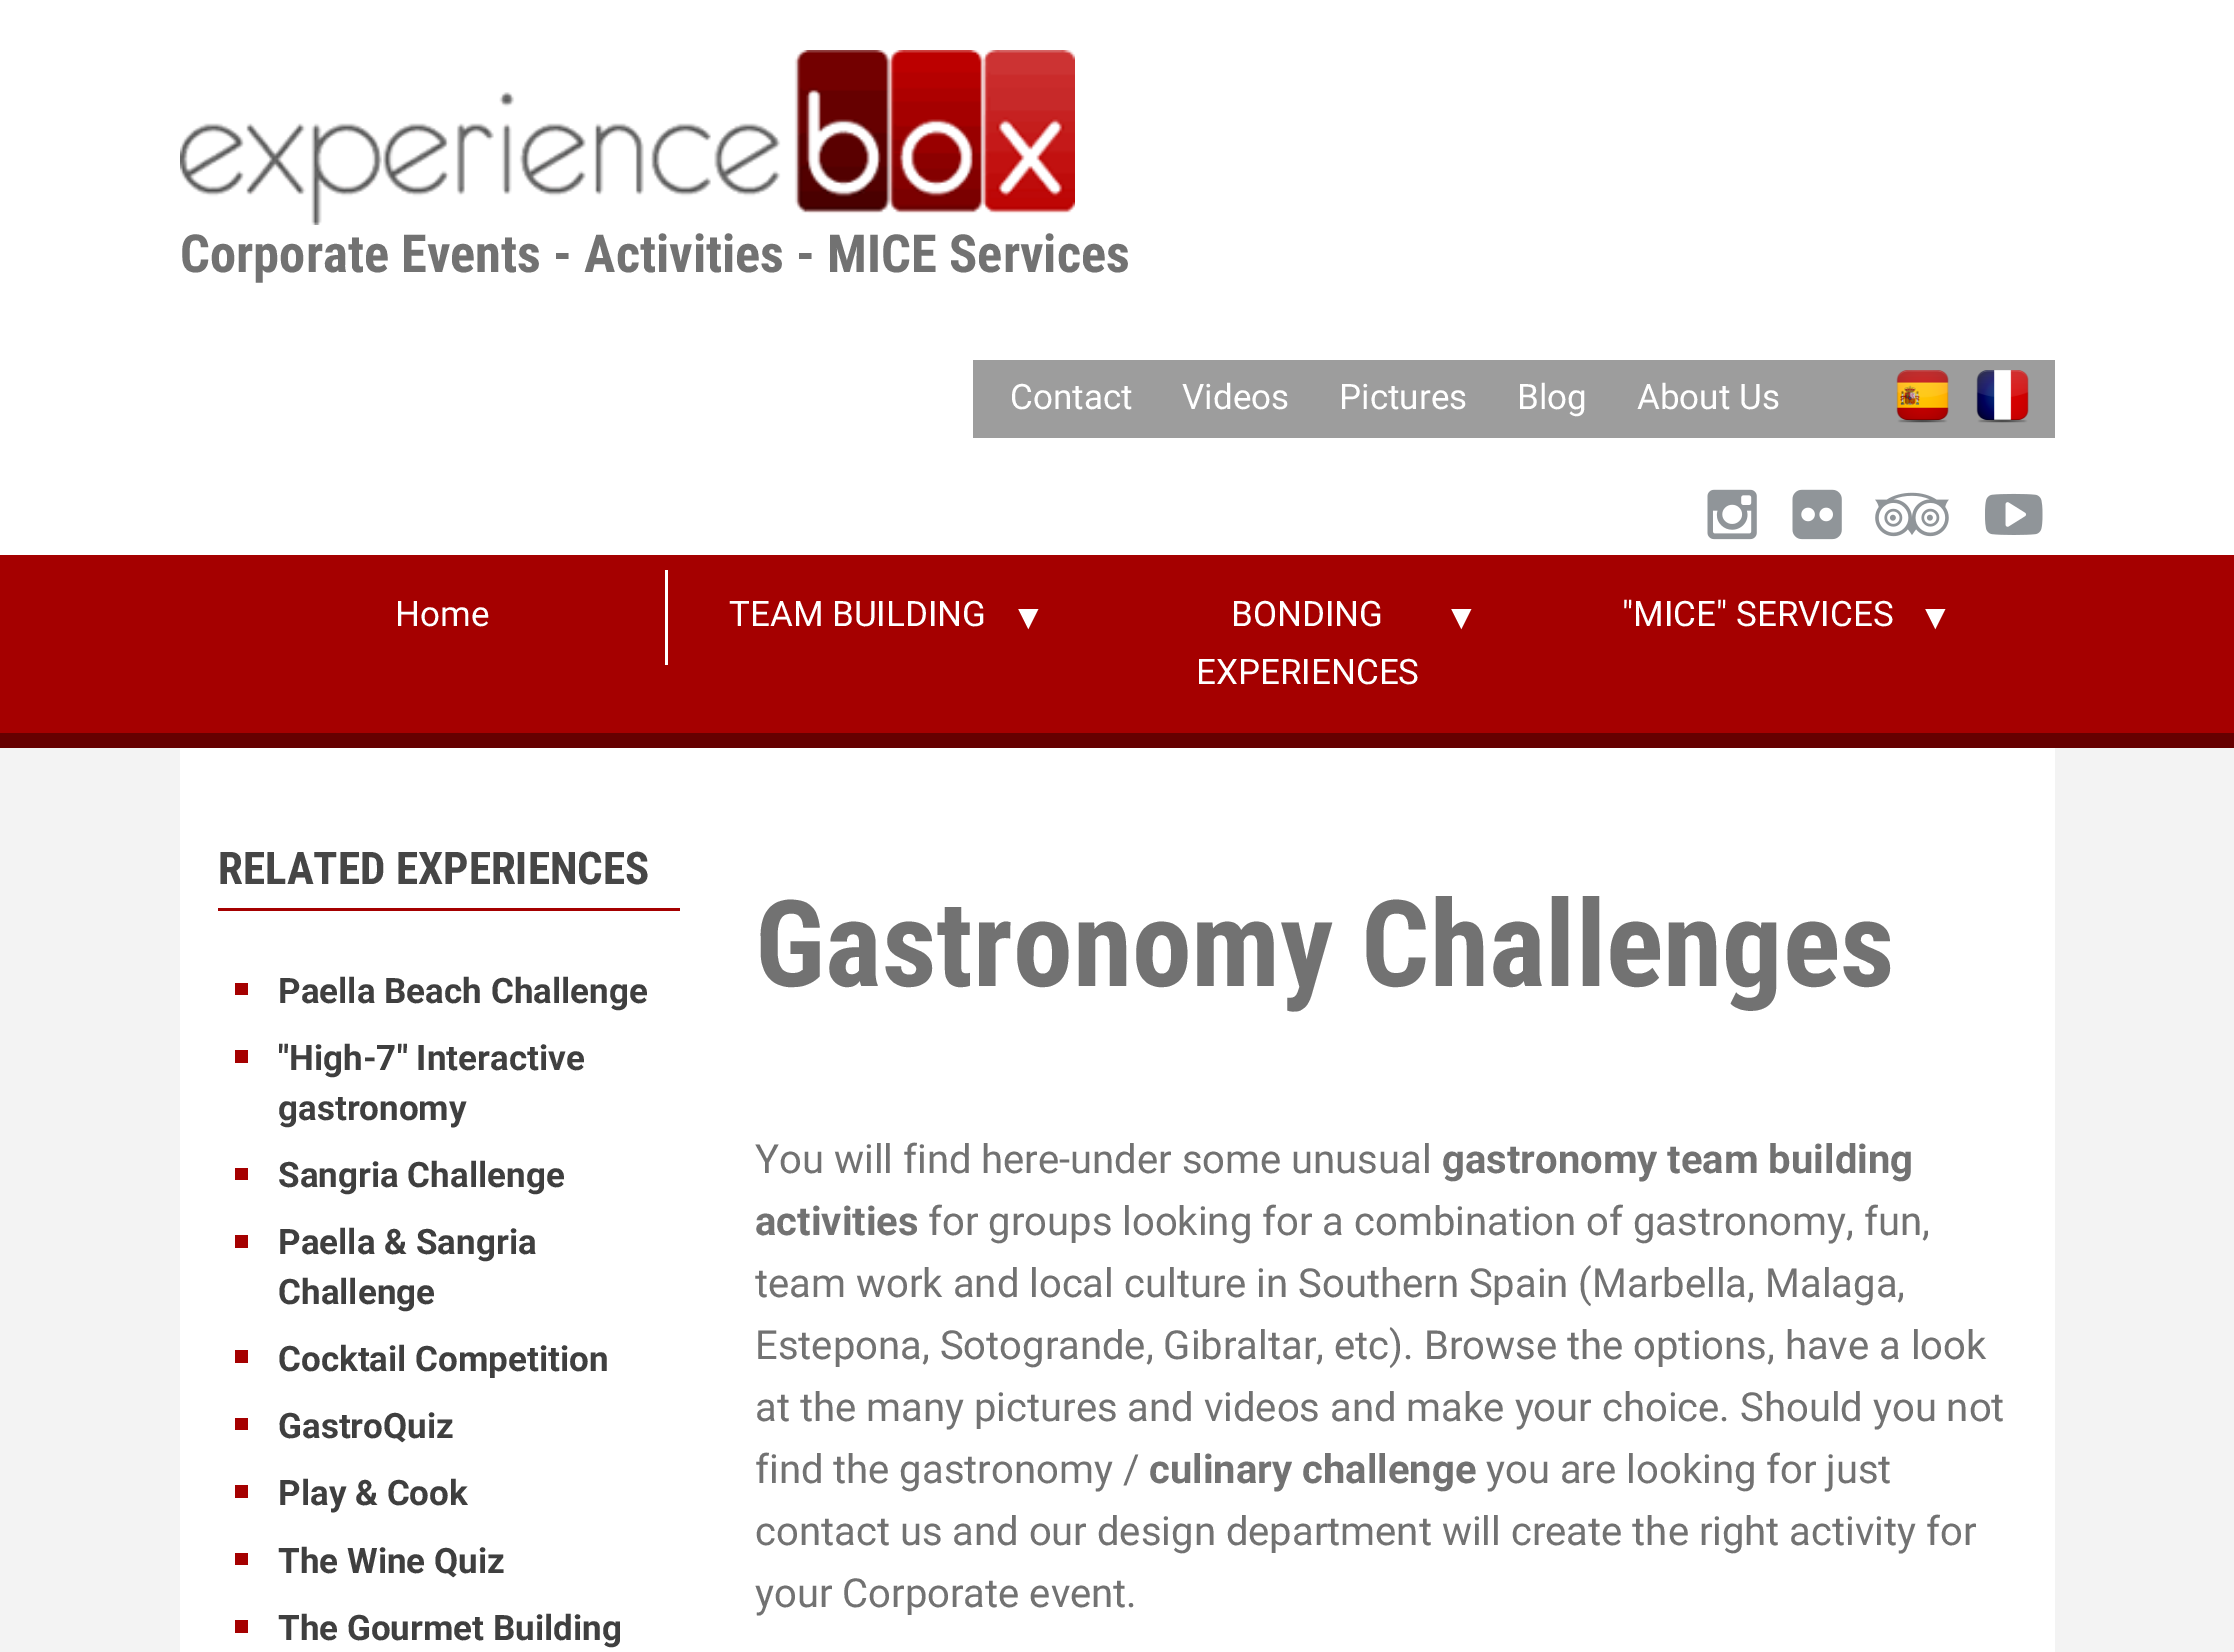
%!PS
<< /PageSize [2234 1652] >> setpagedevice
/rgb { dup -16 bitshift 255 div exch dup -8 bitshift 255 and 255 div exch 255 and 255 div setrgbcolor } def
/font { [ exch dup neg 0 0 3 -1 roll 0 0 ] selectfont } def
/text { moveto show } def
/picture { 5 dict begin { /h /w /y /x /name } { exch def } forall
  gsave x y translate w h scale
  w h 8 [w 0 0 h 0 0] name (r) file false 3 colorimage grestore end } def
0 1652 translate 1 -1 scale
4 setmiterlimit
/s1 { /RobotoCondensed-Bold 52.5 font 16#727272 rgb } def
/s2 { /Roboto-Regular 35 font 16#FFFFFF rgb } def
/s3 { /LiberationSerif-Regular 35 font 16#FFFFFF rgb } def
/s4 { /RobotoCondensed-Bold 45 font 16#464646 rgb } def
/s5 { /Roboto-Bold 35 font 16#3F3F3F rgb } def
/s6 { /RobotoCondensed-Bold 120 font 16#727272 rgb } def
/s7 { /Roboto-Regular 40 font 16#727272 rgb } def
/s8 { /Roboto-Bold 40 font 16#727272 rgb } def
16#F3F3F3 rgb
0 0 2234 1652 rectfill
16#FFFFFF rgb
0 0 2234 555 rectfill
(pic1.raw) 180 50 895 175 picture
s1
(Corporate Events - Activities - MICE Services) 180 272 text
16#9D9D9D rgb
973 360 1082 78 rectfill
(pic2.raw) 1896 370 53 53 picture
(pic3.raw) 1976 370 53 53 picture
s2
(Contact) 1010 409 text
(Videos) 1182 409 text
(Pictures) 1339 409 text
(Blog) 1517 409 text
(About Us) 1637 409 text
(pic4.raw) 1707 489 50 51 picture
(pic5.raw) 1792 489 50 51 picture
(pic6.raw) 1875 492 74 45 picture
(pic7.raw) 1985 493 58 42 picture
16#A50000 rgb
0 555 2234 178 rectfill
16#660000 rgb
0 733 2234 15 rectfill
s2
(Home) 395 626 text
665 570 3 95 rectfill
(TEAM BUILDING) 729 626 text
s3
(▼) 1011 629 text
s2
(BONDING) 1231 626 text
s3
(▼) 1444 629 text
s2
(EXPERIENCES) 1196 684 text
("MICE" SERVICES) 1622 626 text
s3
(▼) 1918 629 text
180 748 1875 904 rectfill
16#A50000 rgb
218 908 462 3 rectfill
s4
(RELATED EXPERIENCES) 218 884 text
16#A50000 rgb
235 983 13 12 rectfill
s5
(Paella Beach Challenge) 278 1003 text
16#A50000 rgb
235 1050 13 13 rectfill
s5
("High-7" Interactive) 278 1070 text
(gastronomy) 278 1120 text
16#A50000 rgb
235 1168 13 12 rectfill
s5
(Sangria Challenge) 278 1187 text
16#A50000 rgb
235 1235 13 13 rectfill
s5
(Paella & Sangria) 278 1254 text
(Challenge) 278 1304 text
16#A50000 rgb
235 1350 13 13 rectfill
s5
(Cocktail Competition) 278 1371 text
16#A50000 rgb
235 1418 13 12 rectfill
s5
(GastroQuiz) 278 1438 text
16#A50000 rgb
235 1485 13 13 rectfill
s5
(Play & Cook) 278 1505 text
16#A50000 rgb
235 1553 13 12 rectfill
s5
(The Wine Quiz) 278 1573 text
16#A50000 rgb
235 1620 13 13 rectfill
s5
(The Gourmet Building) 278 1640 text
s6
(Gastronomy Challenges) 755 986 text
s7
(You will find here-under some unusual) 755 1173 text
s8
(gastronomy team building) 1442 1173 text
(activities) 755 1235 text
s7
(for groups looking for a combination of gastronomy, fun,) 928 1235 text
(team work and local culture in Southern Spain \(Marbella, Malaga,) 755 1297 text
(Estepona, Sotogrande, Gibraltar, etc\). Browse the options, have a look) 755 1359 text
(at the many pictures and videos and make your choice. Should you not) 755 1421 text
(find the gastronomy /) 755 1483 text
s8
(culinary challenge) 1149 1483 text
s7
(you are looking for just) 1486 1483 text
(contact us and our design department will create the right activity for) 755 1545 text
(your Corporate event.) 755 1607 text
showpage
